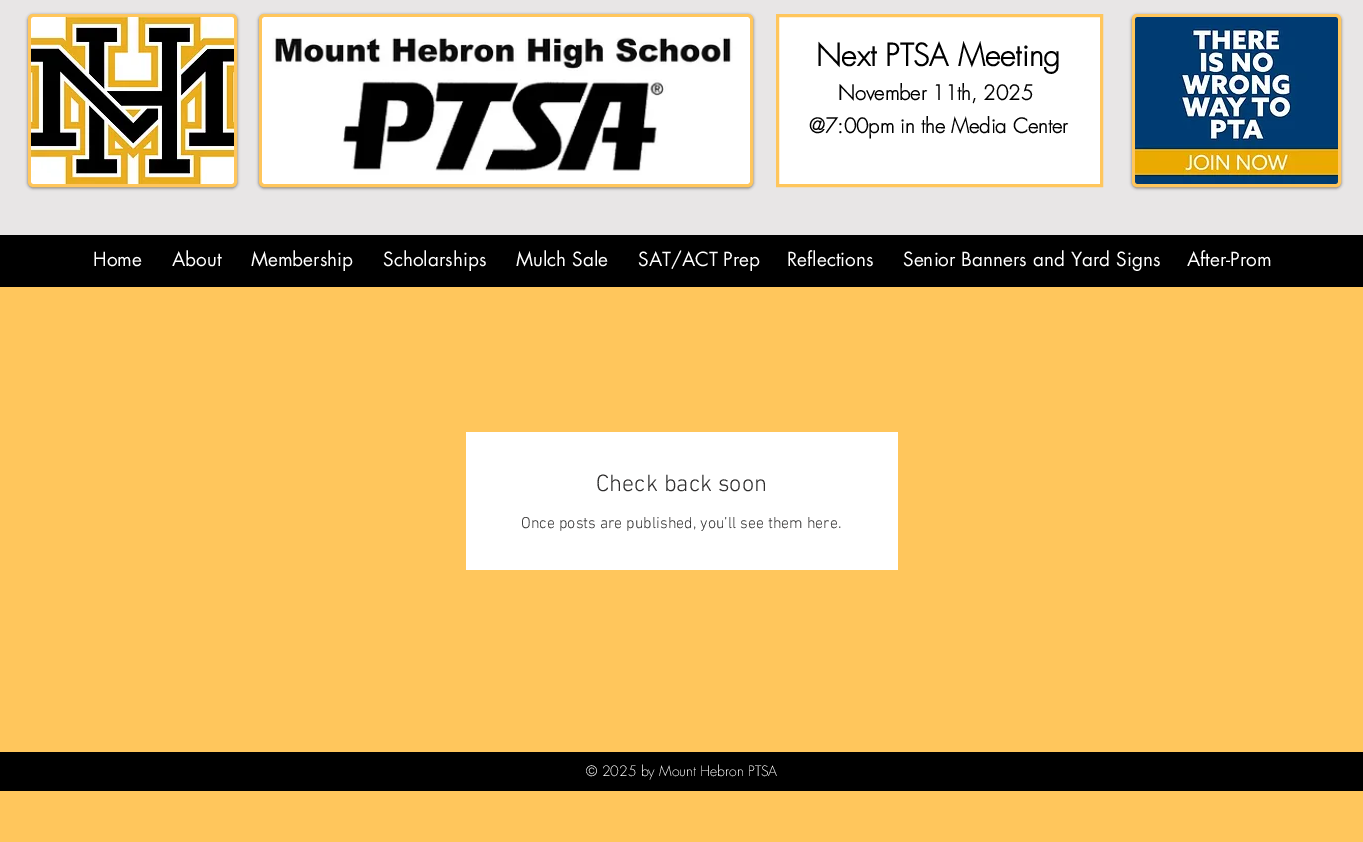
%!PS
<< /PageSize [1363 842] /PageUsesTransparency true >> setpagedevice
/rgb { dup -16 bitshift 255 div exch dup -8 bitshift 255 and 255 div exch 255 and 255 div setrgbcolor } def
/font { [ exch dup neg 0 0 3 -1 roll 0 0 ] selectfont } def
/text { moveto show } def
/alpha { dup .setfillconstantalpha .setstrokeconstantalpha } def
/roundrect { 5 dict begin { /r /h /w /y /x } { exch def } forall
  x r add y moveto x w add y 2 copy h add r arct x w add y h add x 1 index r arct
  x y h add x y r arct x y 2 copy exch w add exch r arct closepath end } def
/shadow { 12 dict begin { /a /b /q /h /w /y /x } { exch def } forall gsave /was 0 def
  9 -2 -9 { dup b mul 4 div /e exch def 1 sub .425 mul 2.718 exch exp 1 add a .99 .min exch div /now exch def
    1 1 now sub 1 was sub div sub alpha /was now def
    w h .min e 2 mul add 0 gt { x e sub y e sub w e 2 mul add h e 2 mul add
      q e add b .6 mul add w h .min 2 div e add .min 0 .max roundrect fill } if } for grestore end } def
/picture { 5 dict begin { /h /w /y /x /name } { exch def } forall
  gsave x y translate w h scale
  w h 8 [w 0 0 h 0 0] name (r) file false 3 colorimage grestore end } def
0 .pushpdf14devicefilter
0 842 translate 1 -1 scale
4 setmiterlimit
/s1 { /futura-Bold 30 font 16#000000 rgb } def
/s2 { /futura-Bold 20 font 16#000000 rgb } def
/s3 { /futura-Regular 19 font 16#FFFFFF rgb } def
/s4 { /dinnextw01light-Light 24 font 16#2F2E2E rgb } def
/s5 { /dinnextw01light-Light 16 font 16#2F2E2E rgb } def
/s6 { /futura-Light 14 font 16#FFFFFF rgb } def
16#FFC65C rgb
0 0 1363 842 rectfill
16#E8E6E6 rgb
0 0 1363 235 rectfill
16#000000 rgb
28 15 209 173 5 1.5 0.5 shadow
16#FFC65C rgb
3 setlinewidth
29.5 15.5 206 170 3.5 roundrect stroke
(pic1.raw) 31 17 203 167 picture
16#000000 rgb
259 15 494 173 5 1.5 0.5 shadow
16#FFC65C rgb
260.5 15.5 491 170 3.5 roundrect gsave fill grestore
stroke
(pic2.raw) 262 17 488 167 picture
16#FFFFFF rgb
777.5 15.5 moveto 1101.5 15.5 lineto 1101.5 185.5 lineto 777.5 185.5 lineto closepath gsave fill grestore
16#FFC65C rgb
stroke
s1
(Next PTSA Meeting) 816 66 text
s2
(November 11th, 2025) 838 100 text
(@7:00pm in the Media Center) 809 133 text
1132 15 209 173 5 1.5 0.5 shadow
16#FFC65C rgb
1133.5 15.5 206 170 3.5 roundrect stroke
(pic3.raw) 1135 17 203 167 picture
16#000000 rgb
0 235 1363 52 rectfill
s3
(Home) 93 266 text
(About) 172 266 text
(Membership) 251 266 text
(Scholarships) 383 266 text
(Mulch Sale) 516 266 text
(SAT/ACT Prep) 638 266 text
(Reflections) 787 266 text
(Senior Banners and Yard Signs) 903 266 text
(After-Prom) 1187 266 text
466 432 432 138 rectfill
s4
(Check back soon) 596 491 text
s5
(Once posts are published, you’ll see them here.) 521 528 text
16#000000 rgb
0 752 1363 39 rectfill
s6
(© 2025 by Mount Hebron PTSA) 586 776 text
.poppdf14devicefilter showpage
